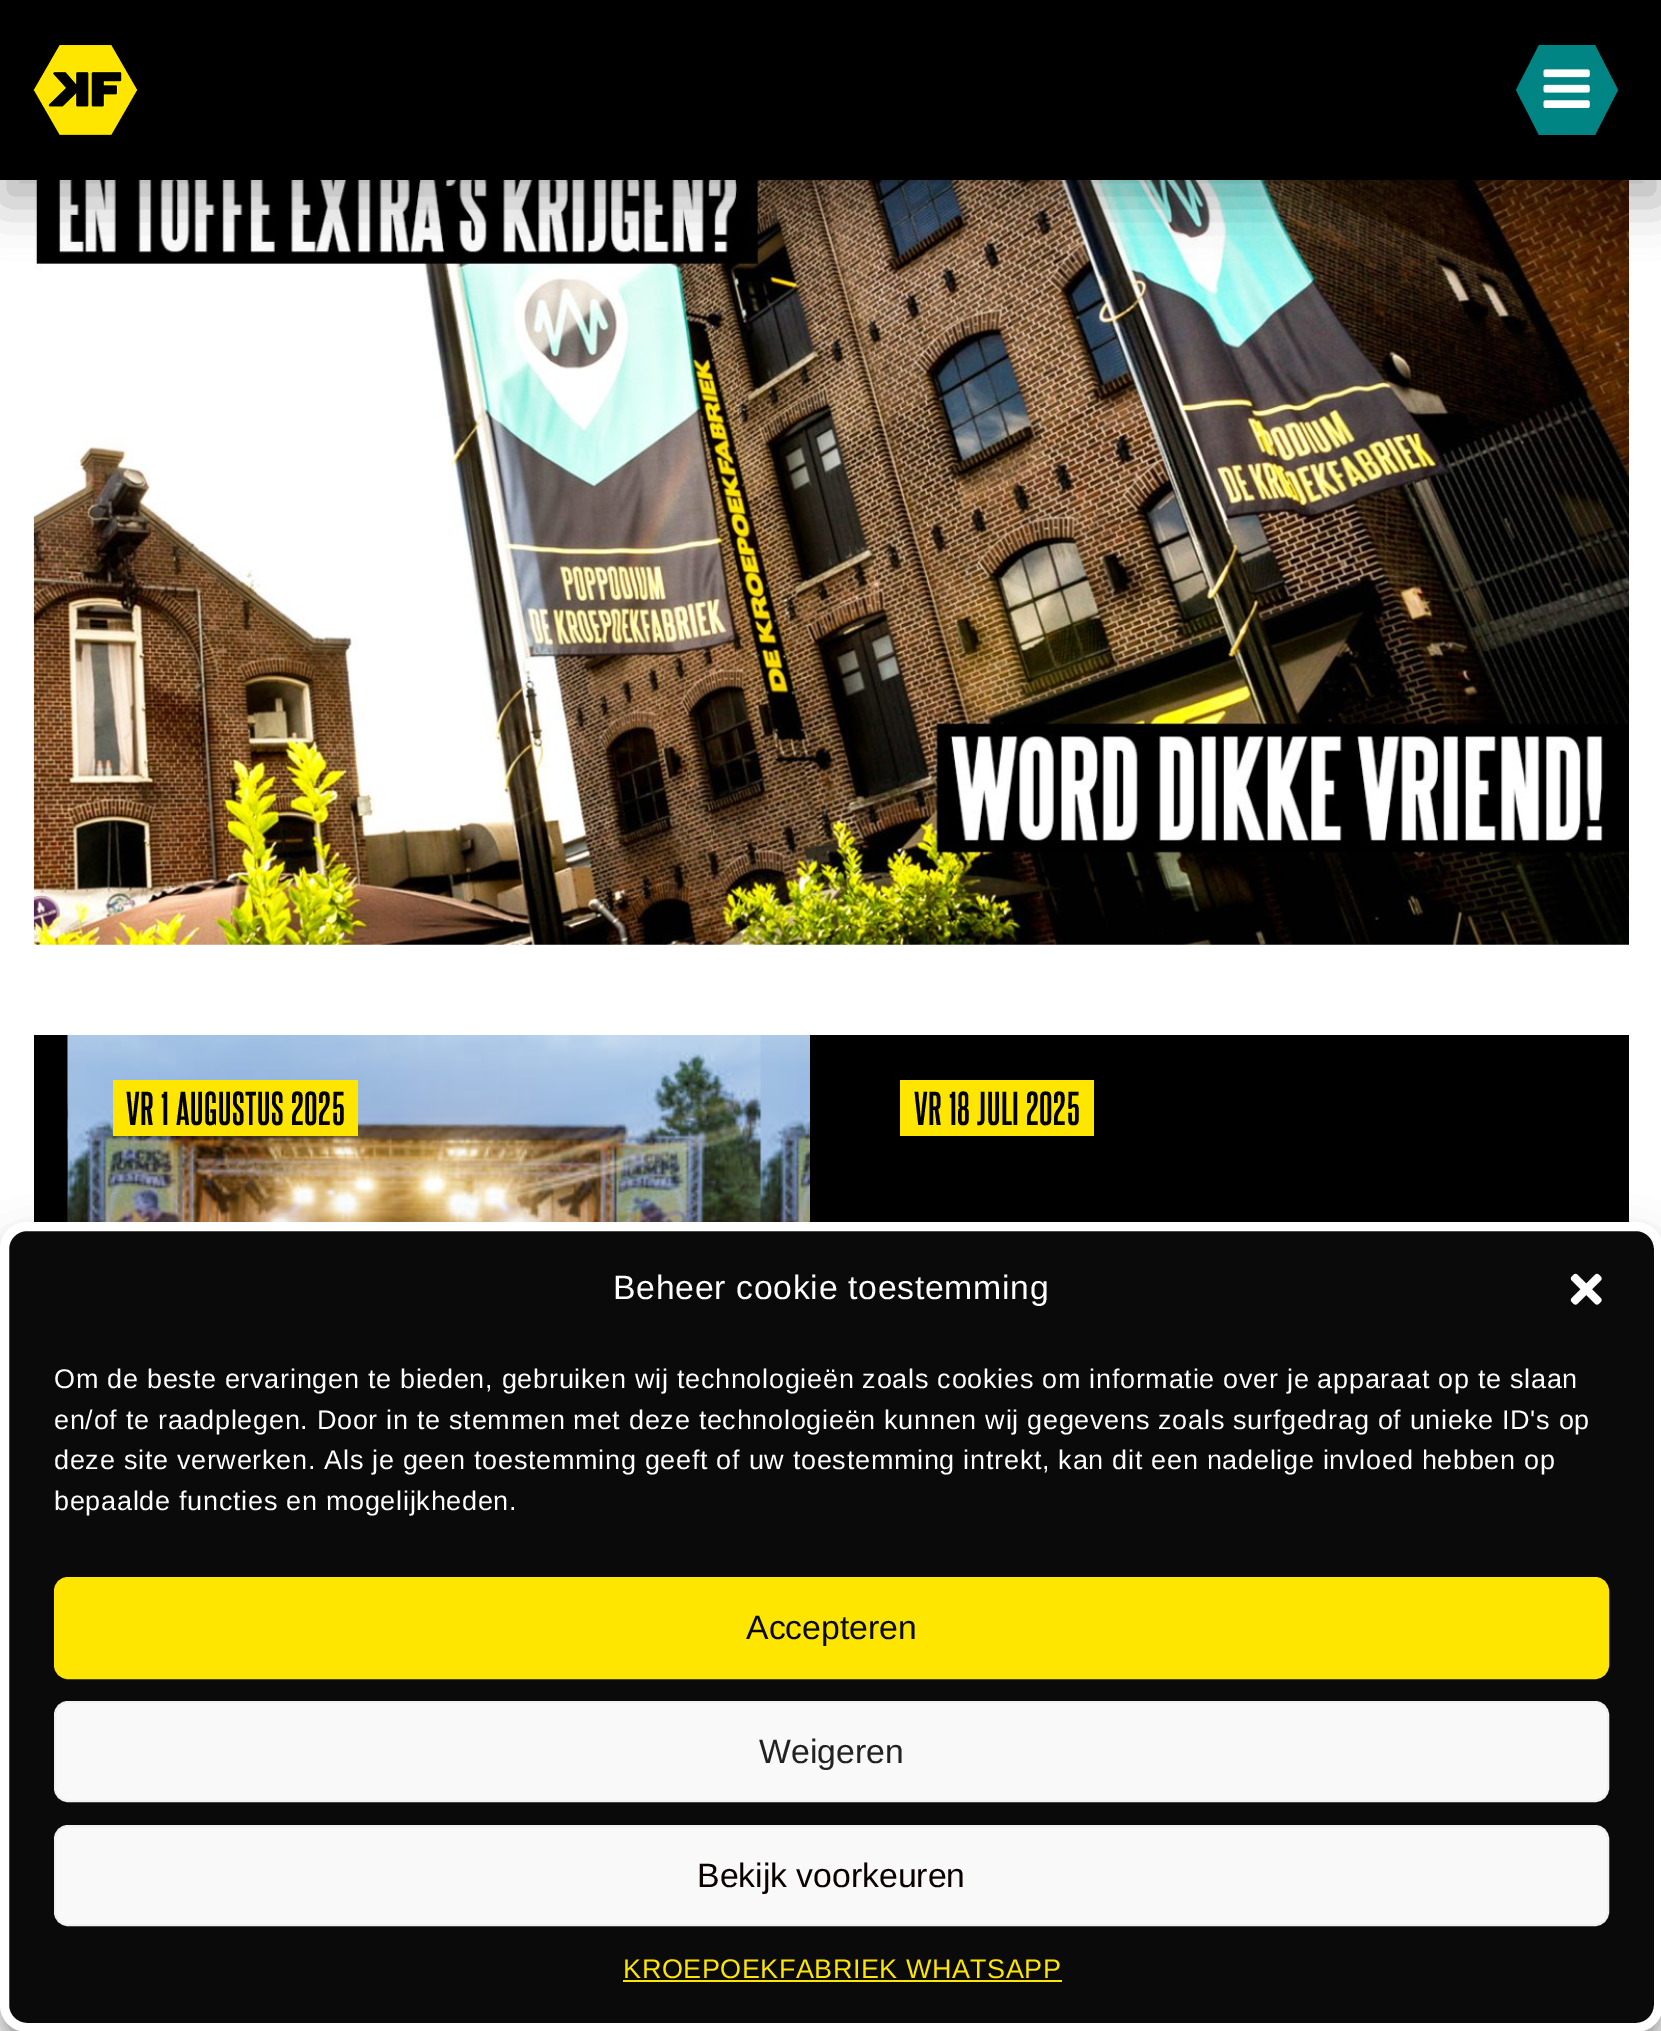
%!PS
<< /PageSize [1661 2031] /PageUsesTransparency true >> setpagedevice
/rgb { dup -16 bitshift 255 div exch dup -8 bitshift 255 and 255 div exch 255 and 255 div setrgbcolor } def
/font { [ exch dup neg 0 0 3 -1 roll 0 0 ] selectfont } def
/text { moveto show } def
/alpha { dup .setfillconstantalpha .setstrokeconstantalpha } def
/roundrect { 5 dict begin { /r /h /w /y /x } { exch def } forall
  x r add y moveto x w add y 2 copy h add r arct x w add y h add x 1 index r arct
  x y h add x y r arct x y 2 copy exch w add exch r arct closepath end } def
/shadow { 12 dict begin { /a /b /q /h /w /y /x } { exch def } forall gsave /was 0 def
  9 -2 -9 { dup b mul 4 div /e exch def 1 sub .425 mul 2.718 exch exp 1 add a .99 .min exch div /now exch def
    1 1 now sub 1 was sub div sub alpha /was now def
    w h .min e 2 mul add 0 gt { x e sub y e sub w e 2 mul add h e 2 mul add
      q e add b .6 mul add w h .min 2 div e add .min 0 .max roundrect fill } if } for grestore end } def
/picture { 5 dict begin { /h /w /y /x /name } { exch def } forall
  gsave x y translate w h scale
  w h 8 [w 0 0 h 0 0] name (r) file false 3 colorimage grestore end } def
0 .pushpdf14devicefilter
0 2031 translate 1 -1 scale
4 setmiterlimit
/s1 { /LiberationSans-Regular 33.75 font 16#0A0A0A rgb } def
/s2 { /LiberationSans-Regular 33.75 font 16#222222 rgb } def
/s3 { /LiberationSans-Regular 33.75 font 16#0A0000 rgb } def
16#FFFFFF rgb
0 0 1661 2031 rectfill
(pic3.raw) 33 180 1596 765 picture
16#000100 rgb
0 23 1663 180 0 26 0.3 shadow
16#000000 rgb
0 0 1661 180 rectfill
(pic1.raw) 33 45 105 90 picture
16#008584 rgb
1539 45 56 90 rectfill
1539 45 moveto 1539 135 lineto 1516 90 lineto closepath fill
(pic2.raw) 1543 69 47 39 picture
1595 135 moveto 1595 45 lineto 1618 90 lineto closepath fill
16#000000 rgb
34 1035 1595 187 rectfill
(pic4.raw) 67 1035 743 187 picture
16#FFE600 rgb
113 1080 245 56 rectfill
/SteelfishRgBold-Regular 40.5 font
16#000000 rgb
126 1125 moveto 0.72 0 (VR 1 AUGUSTUS 2025) ashow
16#FFE600 rgb
900 1080 194 56 rectfill
16#000000 rgb
914 1125 moveto 0.72 0 (VR 18 JULI 2025) ashow
0 1235 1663 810 27 7 0.23 shadow
0 1244 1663 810 27 22.5 0.19 shadow
16#0A0A0A rgb
4.5 1226.5 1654 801 22.5 roundrect gsave fill grestore
16#FFFFFF rgb
9 setlinewidth
stroke
/LiberationSans-Regular 33.75 font
613 1299 moveto 0.72 0 (Beheer cookie toestemming) ashow
(pic5.raw) 1570 1273 32 32 picture
/LiberationSans-Regular 27 font
54 1388 moveto 0.72 0 (Om de beste ervaringen te bieden, gebruiken wij technologieën zoals cookies om informatie over je apparaat op te slaan) ashow
54 1429 moveto 0.72 0 (en/of te raadplegen. Door in te stemmen met deze technologieën kunnen wij gegevens zoals surfgedrag of unieke ID's op) ashow
54 1469 moveto 0.72 0 (deze site verwerken. Als je geen toestemming geeft of uw toestemming intrekt, kan dit een nadelige invloed hebben op) ashow
54 1510 moveto 0.72 0 (bepaalde functies en mogelijkheden.) ashow
16#FFE600 rgb
55 1578 1553 100 13 roundrect gsave fill grestore
2 setlinewidth
stroke
s1
(Accepteren) 746 1639 text
16#F9F9F9 rgb
55 1702 1553 99 13 roundrect gsave fill grestore
16#F2F2F2 rgb
stroke
s2
(Weigeren) 759 1763 text
16#F9F9F9 rgb
55 1826 1553 99 13 roundrect gsave fill grestore
16#F2F2F2 rgb
stroke
s3
(Bekijk voorkeuren) 697 1887 text
/LiberationSans-Regular 27 font
16#FFE600 rgb
623 1978 moveto 0.5 0 (KROEPOEKFABRIEK WHATSAPP) ashow
623 1980 439 2 rectfill
.poppdf14devicefilter showpage
